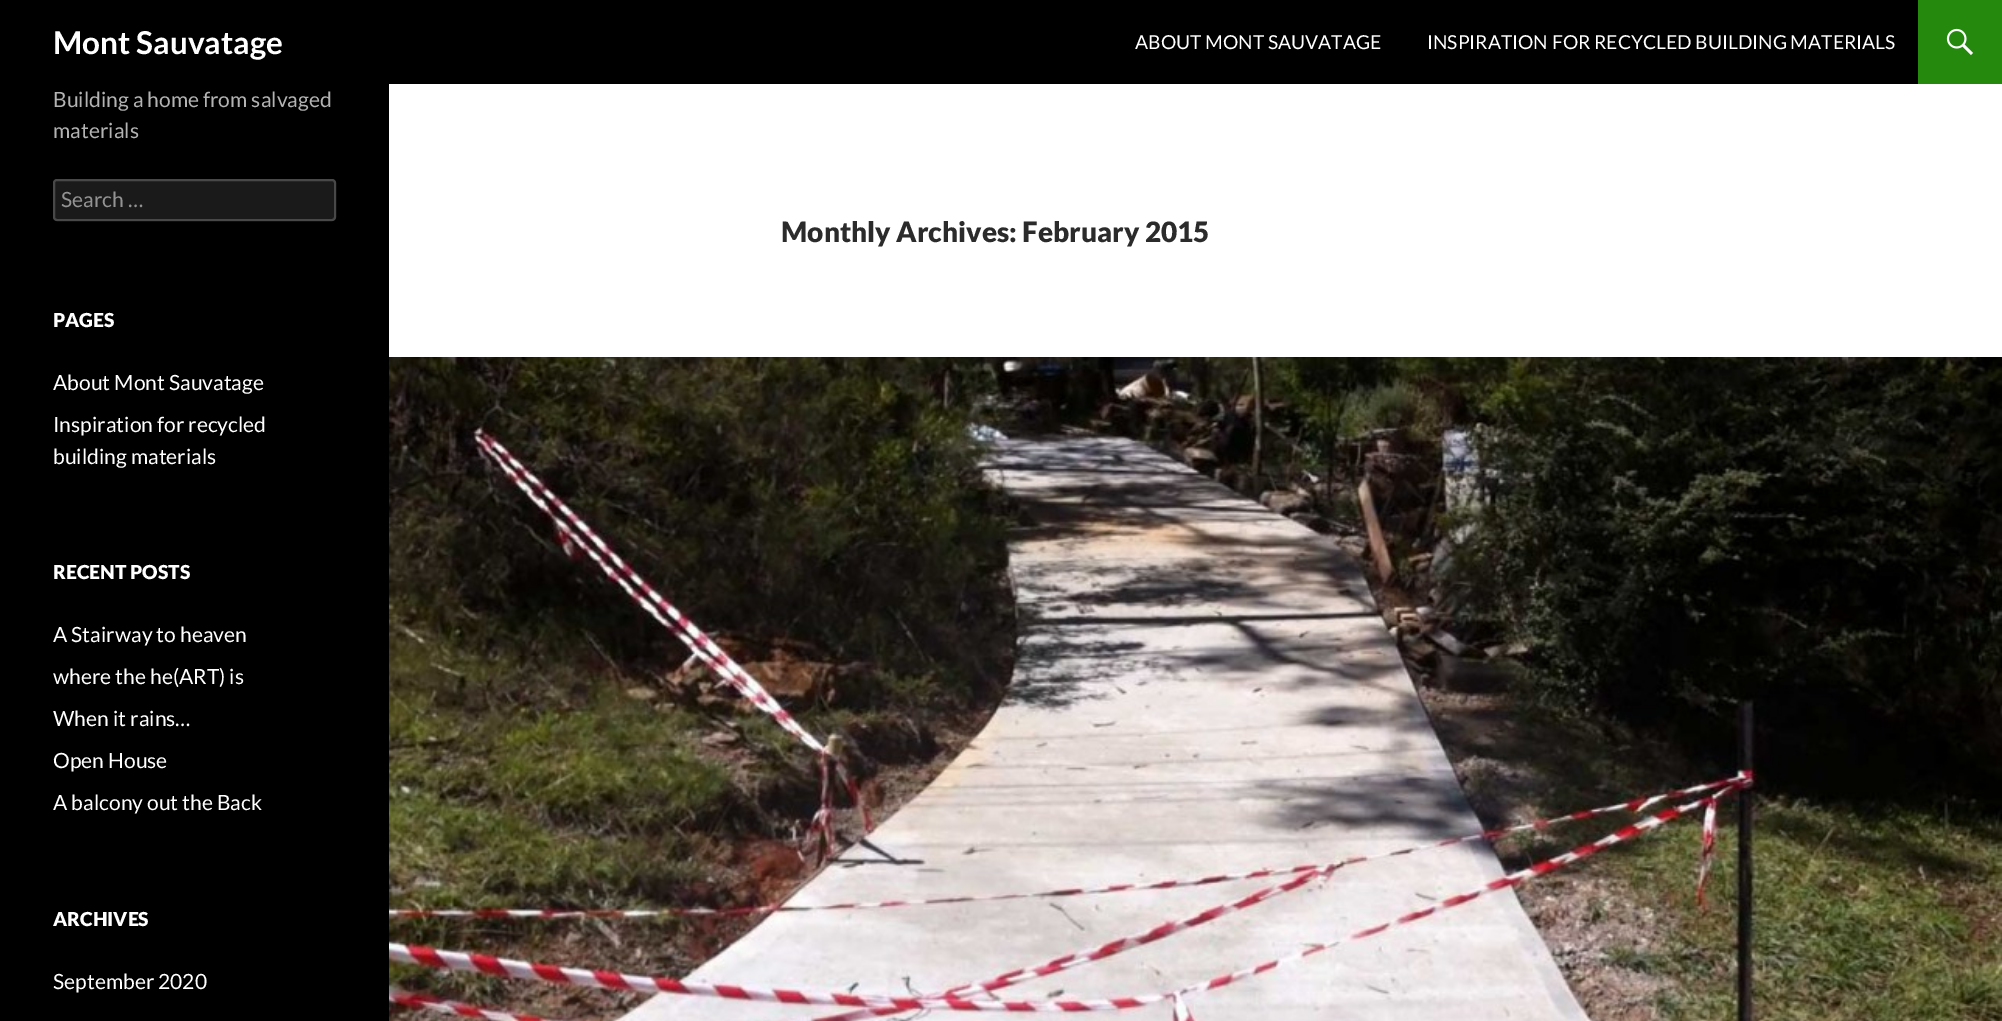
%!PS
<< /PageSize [2002 1021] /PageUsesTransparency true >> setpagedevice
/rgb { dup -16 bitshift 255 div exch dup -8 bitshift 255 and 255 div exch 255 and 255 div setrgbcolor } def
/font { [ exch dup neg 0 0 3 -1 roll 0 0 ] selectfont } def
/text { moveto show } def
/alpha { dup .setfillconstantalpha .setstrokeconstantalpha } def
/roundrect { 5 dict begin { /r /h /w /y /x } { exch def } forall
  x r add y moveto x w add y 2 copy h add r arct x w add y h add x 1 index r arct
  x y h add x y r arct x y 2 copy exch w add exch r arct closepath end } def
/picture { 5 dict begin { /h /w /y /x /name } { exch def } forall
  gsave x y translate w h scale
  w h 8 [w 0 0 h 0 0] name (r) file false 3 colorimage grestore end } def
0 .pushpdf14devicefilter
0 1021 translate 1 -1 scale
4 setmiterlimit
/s1 { /Lato-Bold 31.5 font 16#FFFFFF rgb } def
/s2 { /Lato-Regular 19.25 font 16#FFFFFF rgb } def
/s3 { /Lato-Regular 21 font 16#B3B3B3 rgb } def
/s4 { /Lato-Regular 21 font 16#939393 rgb } def
/s5 { /Lato-Black 19.25 font 16#FFFFFF rgb } def
/s6 { /Lato-Regular 21 font 16#FFFFFF rgb } def
/s7 { /Lato-Black 28 font 16#2B2B2B rgb } def
16#FFFFFF rgb
0 0 2002 1021 rectfill
16#000000 rgb
0 0 1918 84 rectfill
s1
(Mont Sauvatage) 53 54 text
s2
(ABOUT MONT SAUVATAGE) 1135 49 text
(INSPIRATION FOR RECYCLED BUILDING MATERIALS) 1427 49 text
16#24890D rgb
1918 0 84 84 rectfill
(pic1.raw) 1946 28 27 27 picture
16#000000 rgb
0 84 389 937 rectfill
s3
(Building a home from salvaged) 53 107 text
(materials) 53 138 text
16#1A1A1A rgb
53 179 283 42 4 roundrect fill
0.2 alpha
16#FFFFFF rgb
2 setlinewidth
54 180 281 40 3 roundrect stroke
1 alpha
s4
(Search …) 61 207 text
s5
(PAGES) 53 327 text
s6
(About Mont Sauvatage) 53 390 text
(Inspiration for recycled) 53 432 text
(building materials) 53 464 text
s5
(RECENT POSTS) 53 579 text
s6
(A Stairway to heaven) 53 642 text
(where the he\(ART\) is) 53 684 text
(When it rains…) 53 726 text
(Open House) 53 768 text
(A balcony out the Back) 53 810 text
s5
(ARCHIVES) 53 926 text
s6
(September 2020) 53 989 text
s7
(Monthly Archives: February 2015) 781 242 text
(pic2.raw) 389 357 1613 664 picture
.poppdf14devicefilter showpage
